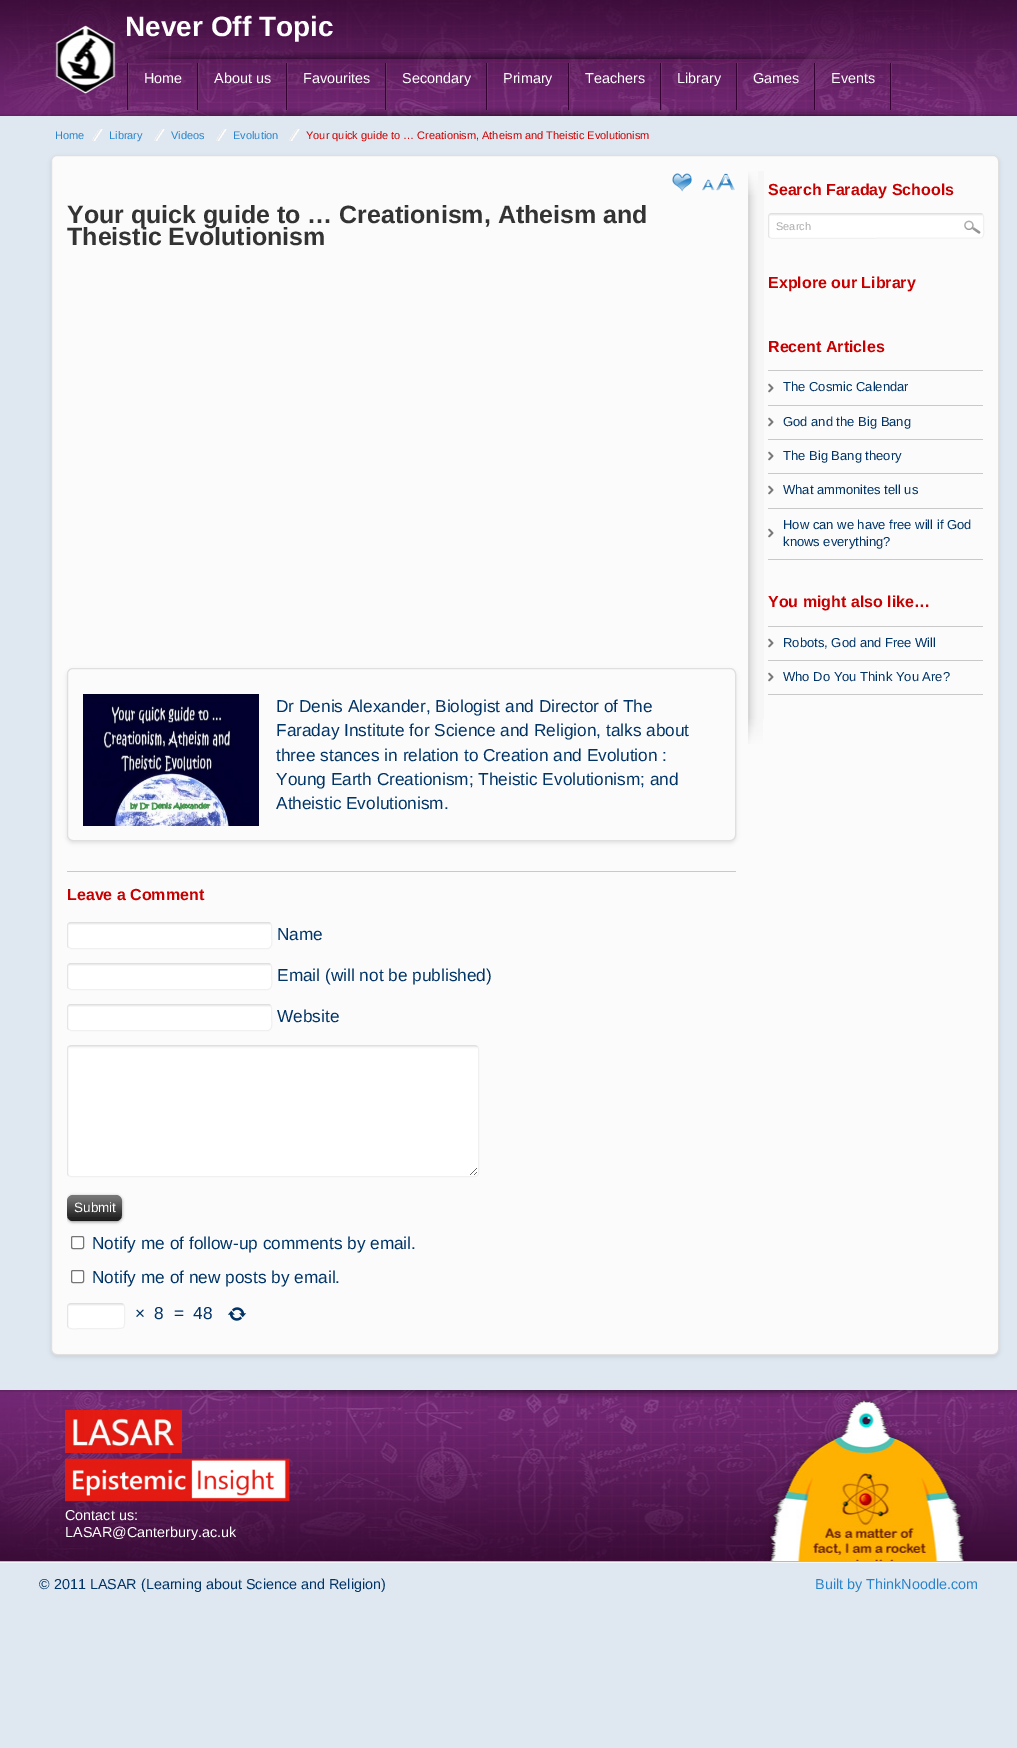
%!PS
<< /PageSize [1017 1748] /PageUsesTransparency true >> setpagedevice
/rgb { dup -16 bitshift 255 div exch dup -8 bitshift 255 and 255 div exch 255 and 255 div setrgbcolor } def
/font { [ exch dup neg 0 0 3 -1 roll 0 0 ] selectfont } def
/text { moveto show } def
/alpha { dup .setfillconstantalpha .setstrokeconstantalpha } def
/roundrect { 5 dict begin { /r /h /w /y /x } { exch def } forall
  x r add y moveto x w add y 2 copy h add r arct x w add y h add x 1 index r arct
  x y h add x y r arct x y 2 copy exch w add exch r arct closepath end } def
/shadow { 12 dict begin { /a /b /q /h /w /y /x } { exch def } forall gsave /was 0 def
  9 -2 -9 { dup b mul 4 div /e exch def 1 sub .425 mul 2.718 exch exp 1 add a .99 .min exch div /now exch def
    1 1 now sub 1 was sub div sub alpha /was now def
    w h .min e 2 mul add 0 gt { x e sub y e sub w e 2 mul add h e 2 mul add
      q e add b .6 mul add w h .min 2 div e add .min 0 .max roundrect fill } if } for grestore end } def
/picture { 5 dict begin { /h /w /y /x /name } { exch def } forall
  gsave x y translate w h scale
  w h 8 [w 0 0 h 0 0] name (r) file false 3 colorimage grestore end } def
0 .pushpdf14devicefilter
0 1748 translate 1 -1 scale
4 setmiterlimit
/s1 { /LiberationSans-Bold 28 font 16#FFFFFF rgb } def
/s2 { /LiberationSans-Regular 14.4 font 16#FFFFFF rgb } def
/s3 { /LiberationSans-Regular 11 font 16#2A84CA rgb } def
/s4 { /LiberationSans-Regular 11 font 16#CC0000 rgb } def
/s5 { /LiberationSans-Bold 25 font 16#333333 rgb } def
/s6 { /LiberationSans-Regular 17.25 font 16#003366 rgb } def
/s7 { /LiberationSans-Bold 16 font 16#C60000 rgb } def
/s8 { /LiberationSans-Regular 13.5 font 16#FFFFFF rgb } def
/s9 { /LiberationSans-Regular 11 font 16#ACACAC rgb } def
/s10 { /LiberationSans-Regular 13 font 16#003366 rgb } def
/s11 { /LiberationSans-Regular 14.4 font 16#003366 rgb } def
/s12 { /LiberationSans-Regular 14.4 font 16#2A84CA rgb } def
16#DFE8F1 rgb
0 0 1017 1748 rectfill
(pic1.raw) 0 0 4 116 picture
(pic2.raw) 4 0 1013 116 picture
s1
(Never Off Topic) 125 36 text
(pic3.raw) 127 63 2 47 picture
s2
(Home) 144 83 text
(pic3.raw) 197 63 2 47 picture
(About us) 214 83 text
(pic3.raw) 286 63 2 47 picture
(Favourites) 303 83 text
(pic3.raw) 385 63 2 47 picture
(Secondary) 402 83 text
(pic3.raw) 486 63 2 47 picture
(Primary) 503 83 text
(pic3.raw) 568 63 2 47 picture
(Teachers) 585 83 text
(pic3.raw) 660 63 2 47 picture
(Library) 677 83 text
(pic3.raw) 736 63 2 47 picture
(Games) 753 83 text
(pic3.raw) 814 63 2 47 picture
(Events) 831 83 text
(pic3.raw) 890 63 2 47 picture
s3
(Home) 55 139 text
(pic4.raw) 92 129 11 12 picture
(Library) 109 139 text
(pic4.raw) 154 129 11 12 picture
(Videos) 171 139 text
(pic4.raw) 216 129 11 12 picture
(Evolution) 233 139 text
(pic4.raw) 289 129 11 12 picture
s4
(Your quick guide to … Creationism, Atheism and Theistic Evolutionism) 306 139 text
16#000000 rgb
51 157 948 1200 6 2 0.1 shadow
16#FBFBFB rgb
51.5 155.5 947 1199 5.5 roundrect gsave fill grestore
16#DFDFDF rgb
stroke
16#2A84CA rgb
672 173 21 19 rectfill
(pic5.raw) 669 171 26 22 picture
702 179 13 12 rectfill
(pic6.raw) 700 171 16 22 picture
716 173 19 18 rectfill
(pic7.raw) 716 171 20 22 picture
s5
(Your quick guide to … Creationism, Atheism and) 67 223 text
(Theistic Evolutionism) 67 245 text
gsave
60 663 moveto 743 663 lineto 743 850 lineto 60 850 lineto closepath 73 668 moveto 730 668 lineto 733.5 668 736 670.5 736 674 curveto 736 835 lineto 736 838.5 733.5 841 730 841 curveto 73 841 lineto 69.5 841 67 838.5 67 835 curveto 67 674 lineto 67 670.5 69.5 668 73 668 curveto closepath eoclip newpath
16#000000 rgb
67 670 669 173 6 2 0.1 shadow
grestore
16#FBFBFB rgb
67.5 668.5 668 172 5.5 roundrect gsave fill grestore
16#DFDFDF rgb
stroke
(pic8.raw) 83 694 176 132 picture
s6
(Dr Denis Alexander, Biologist and Director of The) 276 712 text
(Faraday Institute for Science and Religion, talks about) 276 736 text
(three stances in relation to Creation and Evolution :) 276 761 text
(Young Earth Creationism; Theistic Evolutionism; and) 276 785 text
(Atheistic Evolutionism.) 276 809 text
16#C9C9C9 rgb
67 871 669 1 rectfill
s7
(Leave a Comment) 67 900 text
16#FFFFFF rgb
67 922 205 27 4 roundrect fill
(pic9.raw) 67 923 205 2 picture
16#DFDFDF rgb
68.5 923.5 moveto 69 923 70 922.5 71 922.5 curveto 268 922.5 lineto 269 922.5 270 923 270.5 923.5 curveto stroke
16#F0F0F0 rgb
270.5 923.5 moveto 272.5 925.5 271.5 933 271.5 935.5 curveto 271.5 938 273 945.5 270 947.5 curveto 268.5 948.5 lineto 71 948.5 lineto 68.5 947.5 lineto stroke
16#E5E5E5 rgb
68.5 947.5 moveto 68 947 67.5 946 67.5 945 curveto 67.5 926 lineto 67.5 925 68 924 68.5 923.5 curveto stroke
s6
(Name) 277 940 text
16#FFFFFF rgb
67 963 205 27 4 roundrect fill
(pic9.raw) 67 964 205 2 picture
16#DFDFDF rgb
68.5 964.5 moveto 69 964 70 963.5 71 963.5 curveto 268 963.5 lineto 269 963.5 270 964 270.5 964.5 curveto stroke
16#F0F0F0 rgb
270.5 964.5 moveto 272.5 966.5 271.5 974 271.5 976.5 curveto 271.5 979 273 986.5 270 988.5 curveto 268.5 989.5 lineto 71 989.5 lineto 68.5 988.5 lineto stroke
16#E5E5E5 rgb
68.5 988.5 moveto 68 988 67.5 987 67.5 986 curveto 67.5 967 lineto 67.5 966 68 965 68.5 964.5 curveto stroke
s6
(Email \(will not be published\)) 277 981 text
16#FFFFFF rgb
67 1004 205 27 4 roundrect fill
(pic9.raw) 67 1005 205 2 picture
16#DFDFDF rgb
68.5 1005.5 moveto 69 1005 70 1004.5 71 1004.5 curveto 268 1004.5 lineto 269 1004.5 270 1005 270.5 1005.5 curveto stroke
16#F0F0F0 rgb
270.5 1005.5 moveto 272.5 1007.5 271.5 1015 271.5 1017.5 curveto 271.5 1020 273 1027.5 270 1029.5 curveto 268.5 1030.5 lineto 71 1030.5 lineto 68.5 1029.5 lineto stroke
16#E5E5E5 rgb
68.5 1029.5 moveto 68 1029 67.5 1028 67.5 1027 curveto 67.5 1008 lineto 67.5 1007 68 1006 68.5 1005.5 curveto stroke
s6
(Website) 277 1022 text
16#FFFFFF rgb
67 1045 412 132 4 roundrect fill
(pic10.raw) 67 1046 412 129 picture
16#DFDFDF rgb
68.5 1046.5 moveto 71 1045.5 lineto 475 1045.5 lineto 477.5 1046.5 lineto stroke
16#F0F0F0 rgb
477.5 1046.5 moveto 478 1047 478.5 1048 478.5 1049 curveto 478.5 1173 lineto 478.5 1174 478 1175 477.5 1175.5 curveto 477 1176 476 1176.5 475 1176.5 curveto 71 1176.5 lineto 70 1176.5 69 1176 68.5 1175.5 curveto stroke
16#E5E5E5 rgb
68.5 1175.5 moveto 68 1175 67.5 1174 67.5 1173 curveto 67.5 1049 lineto 67.5 1048 68 1047 68.5 1046.5 curveto stroke
gsave
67 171 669 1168 rectclip
16#000000 rgb
67 1196 55 26 6 1.5 0.4 shadow
grestore
16#222222 rgb
67 1195 55 26 6 roundrect fill
(pic11.raw) 67 1195 55 22 picture
0.25 alpha
16#000000 rgb
70 1220 49 1 rectfill
1 alpha
s8
(Submit) 74 1212 text
71.5 1236.5 12 12 1.5 roundrect gsave fill grestore
16#767676 rgb
stroke
s6
(Notify me of follow-up comments by email.) 92 1249 text
16#FFFFFF rgb
71.5 1270.5 12 12 1.5 roundrect gsave fill grestore
16#767676 rgb
stroke
s6
(Notify me of new posts by email.) 92 1283 text
16#FFFFFF rgb
67 1303 58 26 4 roundrect fill
(pic12.raw) 67 1304 58 2 picture
16#DFDFDF rgb
68.5 1304.5 moveto 70.5 1303.5 lineto 121.5 1303.5 lineto 123.5 1304.5 lineto stroke
16#F0F0F0 rgb
123.5 1304.5 moveto 125.5 1306.5 124.5 1313.5 124.5 1316 curveto 124.5 1329.5 126 1328.5 112.5 1328.5 curveto 79.5 1328.5 lineto 78.5 1328.5 71 1330 68.5 1327.5 curveto stroke
16#E5E5E5 rgb
68.5 1327.5 moveto 68 1327 67.5 1326 67.5 1325 curveto 67.5 1307 lineto 67.5 1306 68 1305 68.5 1304.5 curveto stroke
s6
(×) 135 1319 text
(8) 154 1319 text
(=) 174 1319 text
(48) 193 1319 text
(pic13.raw) 227 1307 20 14 picture
(pic14.raw) 748 719 15 25 picture
(pic15.raw) 748 171 16 548 picture
(pic16.raw) 748 171 10 24 picture
s7
(Search Faraday Schools) 768 195 text
16#FFFFFF rgb
768 213 216 26 4 roundrect fill
(pic17.raw) 768 214 216 2 picture
16#DFDFDF rgb
769.5 214.5 moveto 770 214 771 213.5 772 213.5 curveto 980 213.5 lineto 981 213.5 982 214 982.5 214.5 curveto stroke
16#F0F0F0 rgb
982.5 214.5 moveto 984.5 216.5 983.5 223.5 983.5 226 curveto 983.5 229 985 236.5 981.5 238 curveto 772 238.5 lineto 769.5 237.5 lineto stroke
16#E5E5E5 rgb
769.5 237.5 moveto 769 237 768.5 236 768.5 235 curveto 768.5 217 lineto 768.5 216 769 215 769.5 214.5 curveto stroke
s9
(Search) 776 230 text
(pic18.raw) 964 220 17 14 picture
s7
(Explore our Library) 768 288 text
(Recent Articles) 768 352 text
16#C9C9C9 rgb
768 559 215 1 rectfill
768 370 215 1 rectfill
(pic19.raw) 768 383 6 10 picture
s10
(The Cosmic Calendar) 783 391 text
16#C9C9C9 rgb
768 405 215 1 rectfill
(pic19.raw) 768 417 6 10 picture
s10
(God and the Big Bang) 783 426 text
16#C9C9C9 rgb
768 439 215 1 rectfill
(pic19.raw) 768 451 6 10 picture
s10
(The Big Bang theory) 783 460 text
16#C9C9C9 rgb
768 473 215 1 rectfill
(pic19.raw) 768 485 6 10 picture
s10
(What ammonites tell us) 783 494 text
16#C9C9C9 rgb
768 508 215 1 rectfill
(pic19.raw) 768 528 6 10 picture
s10
(How can we have free will if God) 783 529 text
(knows everything?) 783 546 text
s7
(You might also like…) 768 607 text
16#C9C9C9 rgb
768 694 215 1 rectfill
768 626 215 1 rectfill
(pic19.raw) 768 638 6 10 picture
s10
(Robots, God and Free Will) 783 647 text
16#C9C9C9 rgb
768 660 215 1 rectfill
(pic19.raw) 768 672 6 10 picture
s10
(Who Do You Think You Are?) 783 681 text
(pic20.raw) 0 1390 1017 171 picture
(pic21.raw) 65 1410 117 43 picture
(pic22.raw) 65 1458 225 44 picture
s2
(Contact us:) 65 1520 text
(LASAR@Canterbury.ac.uk) 65 1537 text
(pic23.raw) 0 1561 1017 2 picture
s11
(© 2011 LASAR \(Learning about Science and Religion\)) 39 1589 text
s12
(Built by ThinkNoodle.com) 815 1589 text
.poppdf14devicefilter showpage
